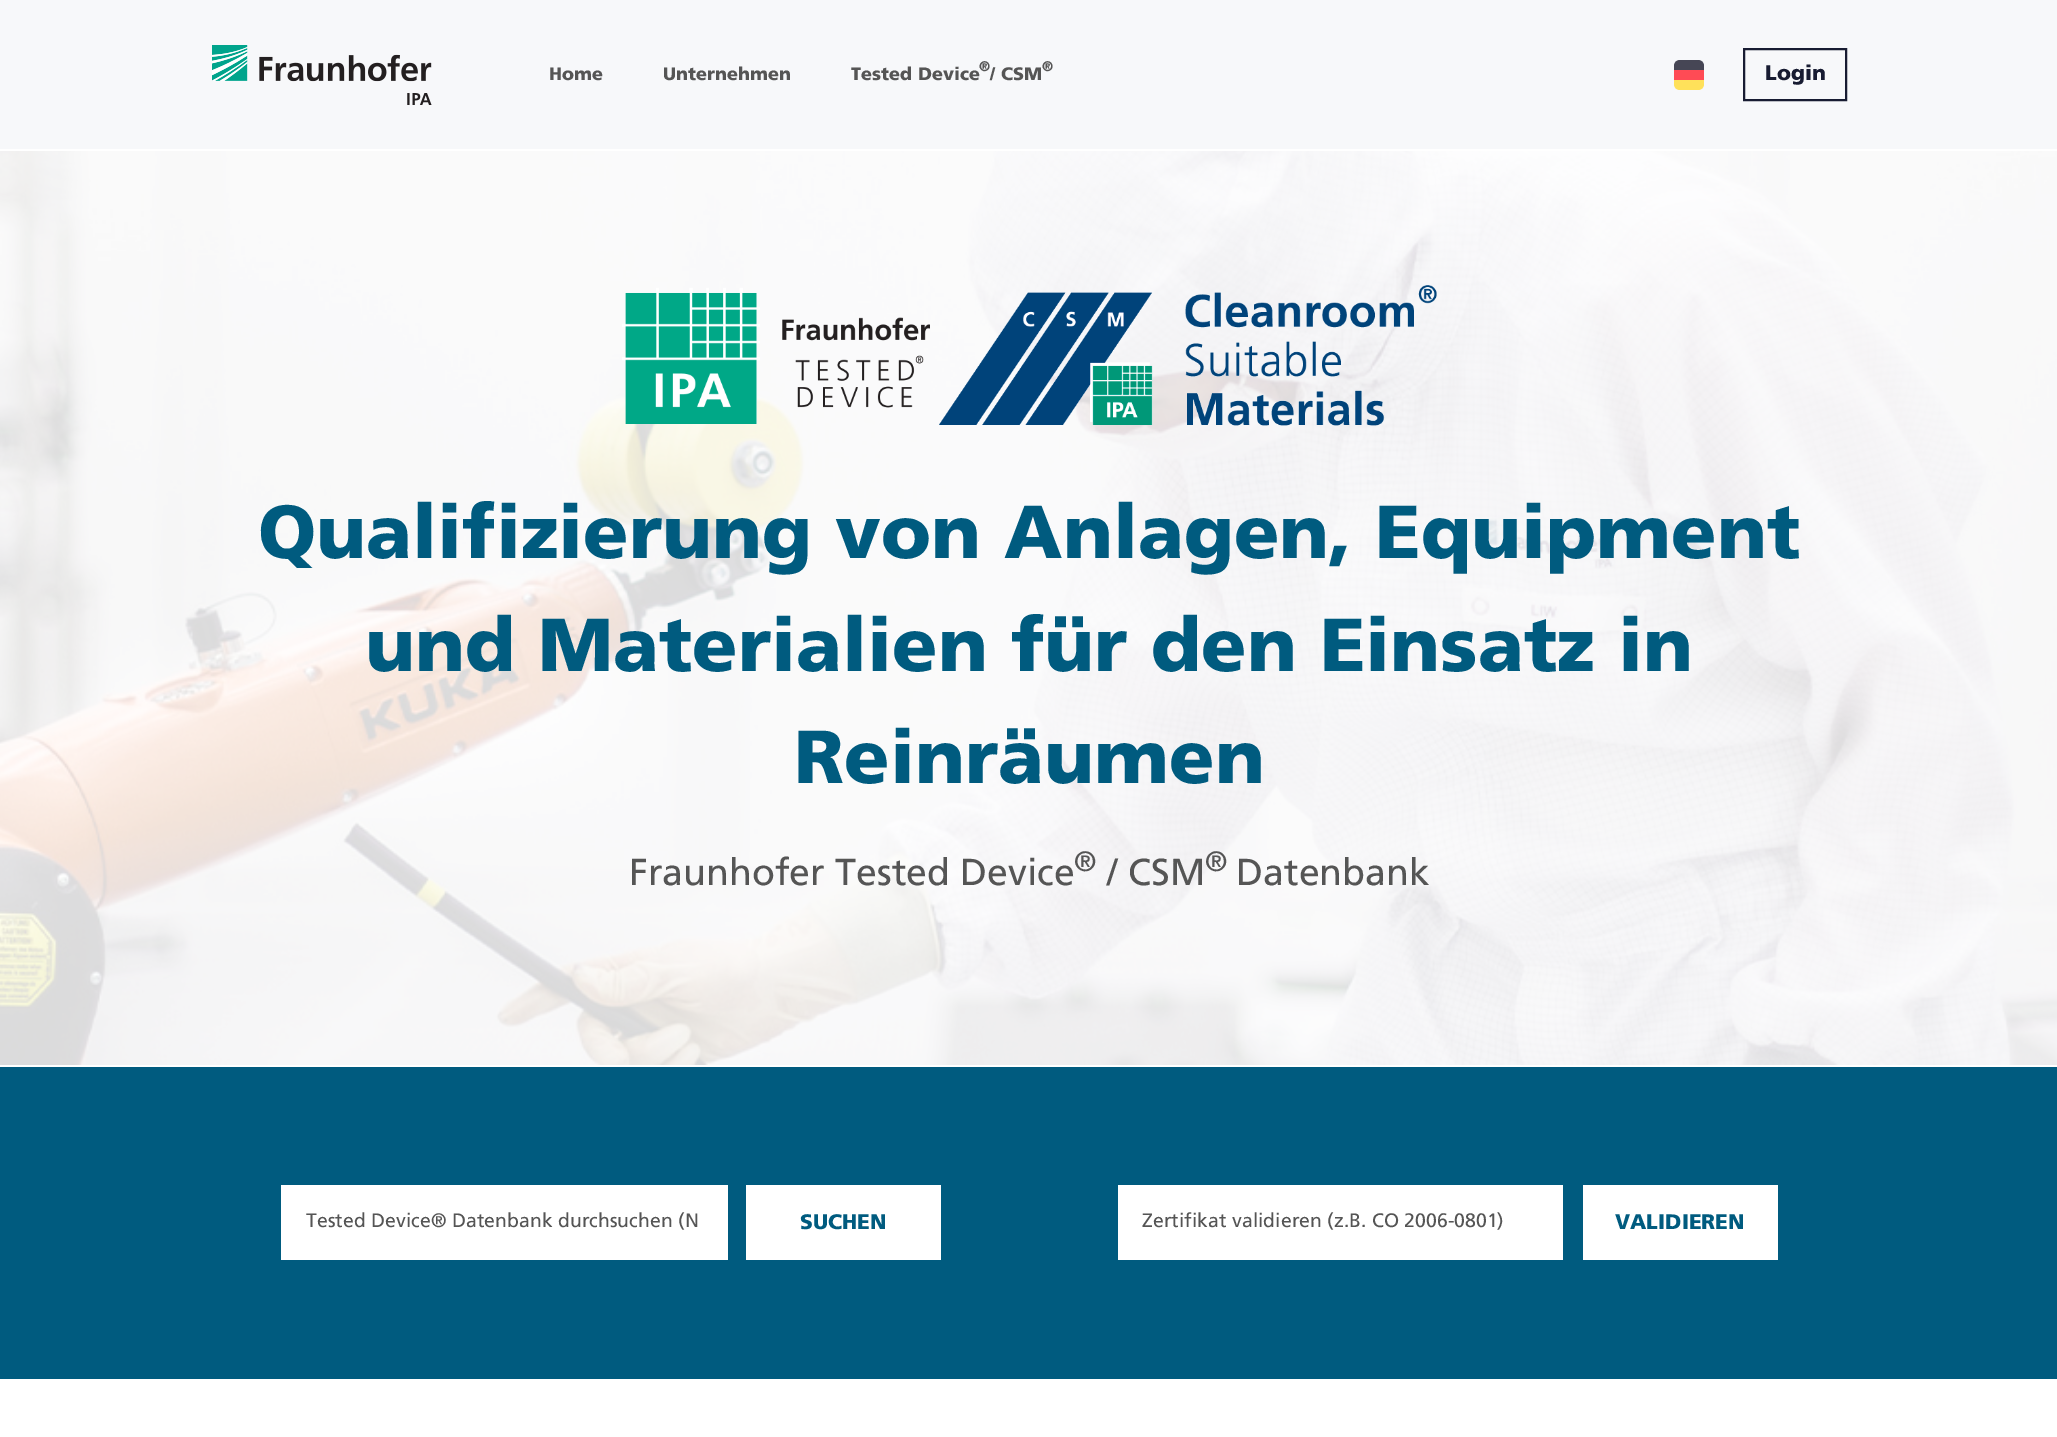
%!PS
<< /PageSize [2057 1437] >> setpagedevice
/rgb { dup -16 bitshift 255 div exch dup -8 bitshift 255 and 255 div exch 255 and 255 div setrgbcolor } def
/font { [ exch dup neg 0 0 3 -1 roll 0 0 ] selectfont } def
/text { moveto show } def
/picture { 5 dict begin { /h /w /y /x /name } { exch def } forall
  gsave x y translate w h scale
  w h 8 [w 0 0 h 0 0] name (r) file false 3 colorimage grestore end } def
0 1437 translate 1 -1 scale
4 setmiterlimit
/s1 { /Frutiger-Black 18 font 16#555555 rgb } def
/s2 { /Frutiger-Black 14 font 16#555555 rgb } def
/s3 { /Frutiger-Black 21 font 16#181C32 rgb } def
/s4 { /Frutiger-Black 75 font 16#005B7F rgb } def
/s5 { /Frutiger-Regular 37.5 font 16#555555 rgb } def
/s6 { /Frutiger-Regular 28 font 16#555555 rgb } def
/s7 { /Frutiger-Regular 19.5 font 16#555555 rgb } def
/s8 { /Frutiger-Black 21 font 16#005B7F rgb } def
16#FFFFFF rgb
0 0 2057 1437 rectfill
16#F7F8FA rgb
0 0 2057 149 rectfill
(pic1.raw) 212 45 220 60 picture
s1
(Home) 549 80 text
(Unternehmen) 663 80 text
(Tested Device) 851 80 text
(/ CSM) 990 80 text
s2
(®) 979 71 text
(®) 1042 71 text
16#464655 rgb
1680 60 moveto 1698 60 lineto 1701.5 60 1704 62.5 1704 66 curveto 1704 70 lineto 1674 70 lineto 1674 66 lineto 1674 62.5 1676.5 60 1680 60 curveto closepath fill
16#FFE15A rgb
1674 80 moveto 1704 80 lineto 1704 84 lineto 1704 87.5 1701.5 90 1698 90 curveto 1680 90 lineto 1676.5 90 1674 87.5 1674 84 curveto closepath fill
16#FF4B55 rgb
1674 70 30 10 rectfill
16#181C32 rgb
2 setlinewidth
1744 49 102 51 rectstroke
s3
(Login) 1765 80 text
(pic2.raw) 0 151 2057 914 picture
(pic3.raw) 622 285 815 141 picture
s4
(Qualifizierung von Anlagen, Equipment) 258 558 text
(und Materialien für den Einsatz in) 365 671 text
(Reinräumen) 794 783 text
s5
(Fraunhofer Tested Device) 629 885 text
s6
(®) 1074 871 text
s5
(/ CSM) 1107 885 text
s6
(®) 1205 871 text
s5
(Datenbank) 1236 885 text
16#005B7F rgb
0 1067 2057 312 rectfill
16#FFFFFF rgb
281 1185 447 75 rectfill
s7
(Tested Device® Datenbank durchsuchen \(N) 306 1227 text
16#FFFFFF rgb
746 1185 195 75 rectfill
s8
(SUCHEN) 800 1229 text
16#FFFFFF rgb
1118 1185 445 75 rectfill
s7
(Zertifikat validieren \(z.B. CO 2006-0801\)) 1142 1227 text
16#FFFFFF rgb
1583 1185 195 75 rectfill
s8
(VALIDIEREN) 1615 1229 text
showpage
